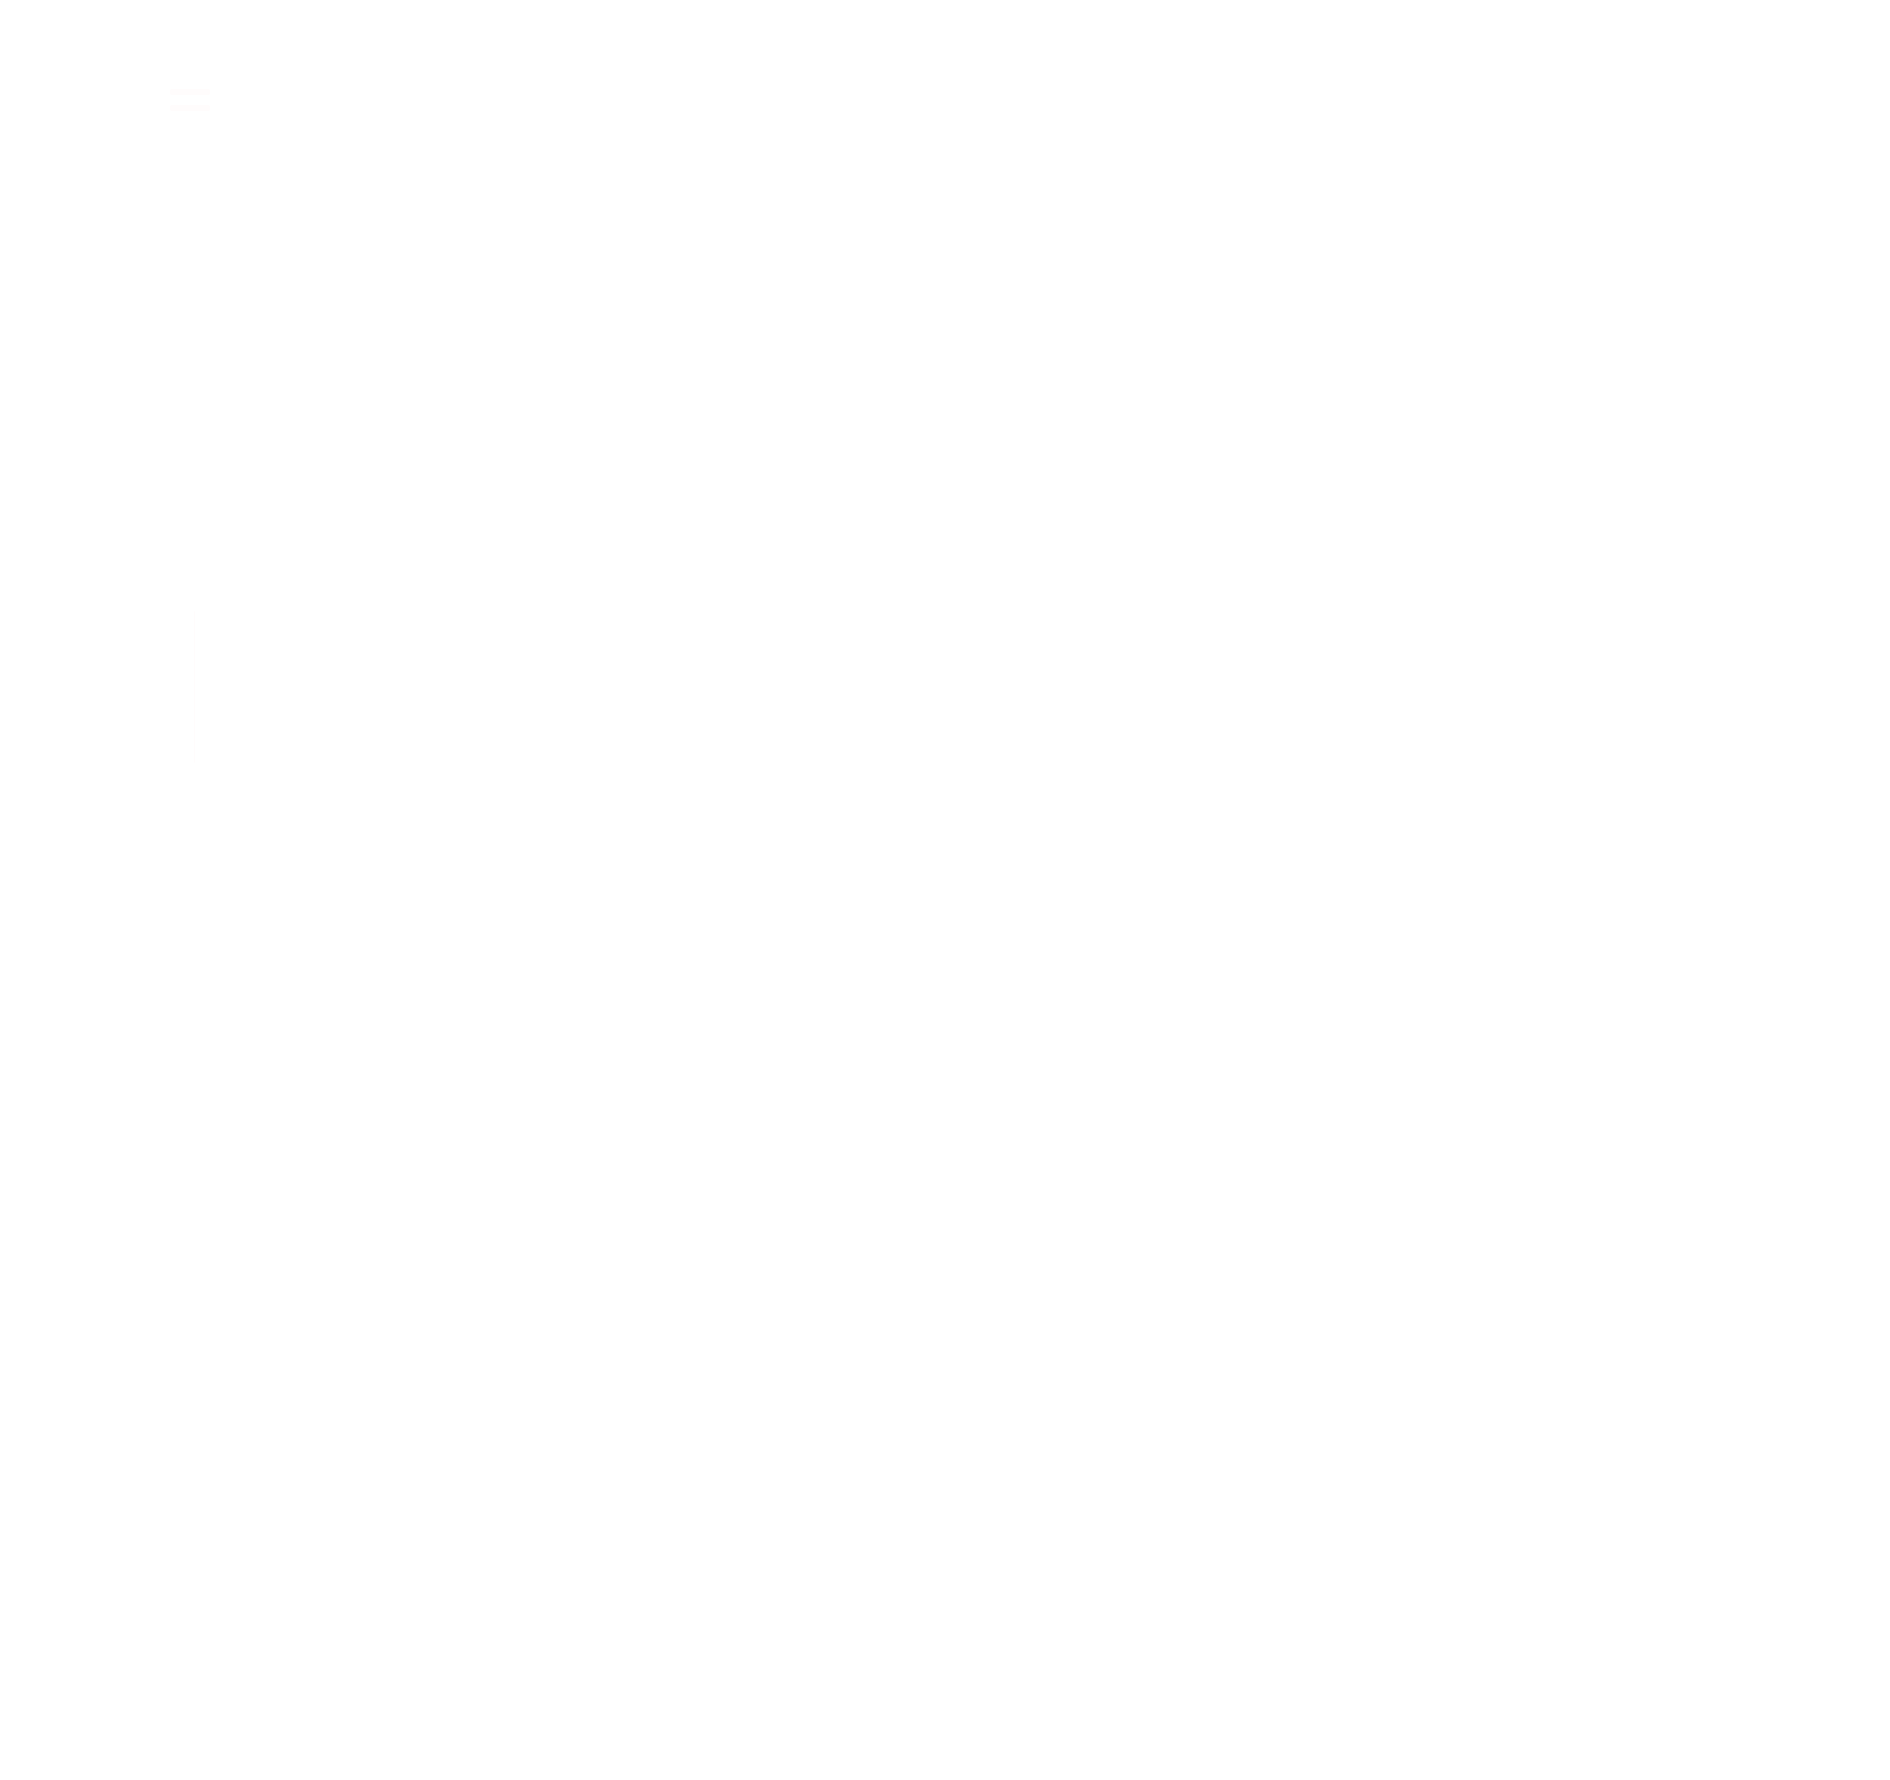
%!PS
<< /PageSize [1890 1780] >> setpagedevice
/rgb { dup -16 bitshift 255 div exch dup -8 bitshift 255 and 255 div exch 255 and 255 div setrgbcolor } def
/roundrect { 5 dict begin { /r /h /w /y /x } { exch def } forall
  x r add y moveto x w add y 2 copy h add r arct x w add y h add x 1 index r arct
  x y h add x y r arct x y 2 copy exch w add exch r arct closepath end } def
0 1780 translate 1 -1 scale
4 setmiterlimit
16#FFFFFF rgb
0 0 1890 1780 rectfill
16#FFFCFC rgb
170 89 40 6 3 roundrect fill
170 105 40 6 3 roundrect fill
195 611 moveto 195 763 lineto 194 762 lineto 194 612 lineto closepath fill
showpage
